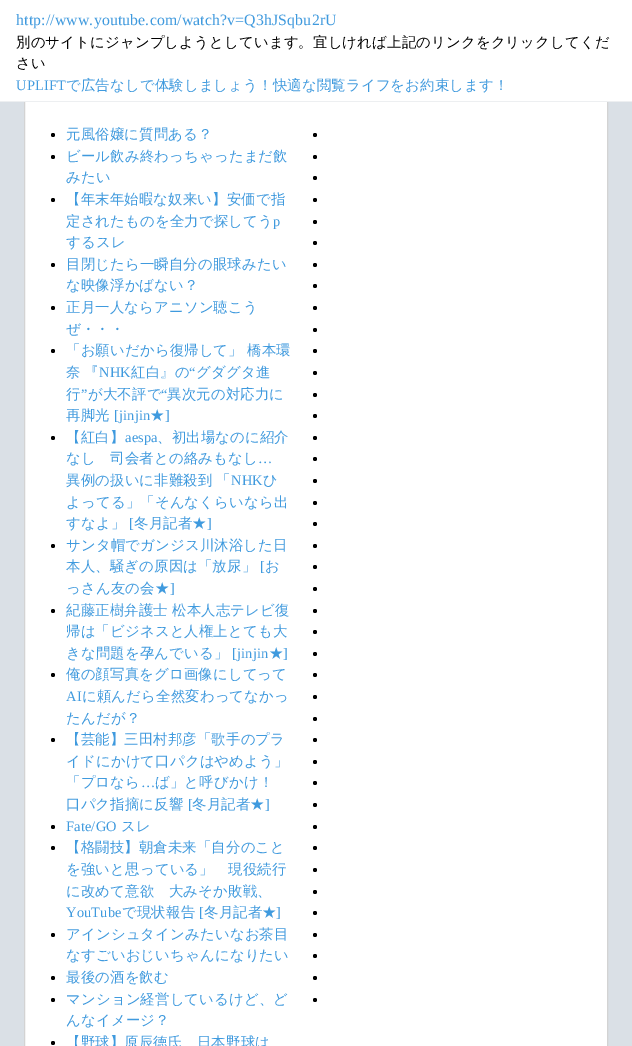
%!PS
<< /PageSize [632 1046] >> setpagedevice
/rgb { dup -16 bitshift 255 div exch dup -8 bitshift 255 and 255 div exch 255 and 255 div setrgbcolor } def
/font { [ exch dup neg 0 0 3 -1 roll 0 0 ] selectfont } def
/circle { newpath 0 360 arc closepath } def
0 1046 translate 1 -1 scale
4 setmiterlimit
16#DAE0E6 rgb
0 0 632 1046 rectfill
16#FFFFFF rgb
25 102 582 944 rectfill
16#D3D3D3 rgb
24.5 70.5 583 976 rectstroke
16#FFFFFF rgb
0 0 632 101 rectfill
16#EDEFF1 rgb
0 101 632 1 rectfill
/LiberationSerif-Regular 15.8 font
16#3F9ADE rgb
16 25 moveto 0.15 0 (http://www.youtube.com/watch?v=Q3hJSqbu2rU) ashow
/WenQuanYiZenHei-Medium 14.4 font
16#000000 rgb
16 47 moveto 0.15 0 (別のサイトにジャンプしようとしています。宜しければ上記のリンクをクリックしてくだ) ashow
16 68 moveto 0.15 0 (さい) ashow
/LiberationSerif-Regular 14.4 font
16#3F9ADE rgb
16 90 moveto 0.15 0 (UPLIFT) ashow
/WenQuanYiZenHei-Medium 14.4 font
66 90 moveto 0.15 0 (で広告なしで体験しましょう！快適な閲覧ライフをお約束します！) ashow
16#000000 rgb
53 135 2 circle fill
16#3F9ADE rgb
66 139 moveto 0.15 0 (元風俗嬢に質問ある？) ashow
16#000000 rgb
53 157 2 circle fill
16#3F9ADE rgb
66 161 moveto 0.15 0 (ビール飲み終わっちゃったまだ飲) ashow
66 182 moveto 0.15 0 (みたい) ashow
16#000000 rgb
53 200 2 circle fill
16#3F9ADE rgb
66 204 moveto 0.15 0 (【年末年始暇な奴来い】安価で指) ashow
66 226 moveto 0.15 0 (定されたものを全力で探してう) ashow
/LiberationSerif-Regular 14.4 font
273 226 moveto 0.15 0 (p) ashow
/WenQuanYiZenHei-Medium 14.4 font
66 247 moveto 0.15 0 (するスレ) ashow
16#000000 rgb
53 265 2 circle fill
16#3F9ADE rgb
66 269 moveto 0.15 0 (目閉じたら一瞬自分の眼球みたい) ashow
66 290 moveto 0.15 0 (な映像浮かばない？) ashow
16#000000 rgb
53 308 2 circle fill
16#3F9ADE rgb
66 312 moveto 0.15 0 (正月一人ならアニソン聴こう) ashow
66 334 moveto 0.15 0 (ぜ・・・) ashow
16#000000 rgb
53 351 2 circle fill
16#3F9ADE rgb
66 355 moveto 0.15 0 (「お願いだから復帰して」) ashow
247 355 moveto 0.15 0 (橋本環) ashow
66 377 moveto -1 0 32 0.15 0 (奈 『) awidthshow
/LiberationSerif-Regular 14.4 font
99 377 moveto 0.15 0 (NHK) ashow
/WenQuanYiZenHei-Medium 14.4 font
131 377 moveto 0.15 0 (紅白』の) ashow
/LiberationSerif-Regular 14.4 font
189 377 moveto 0.15 0 (“) ashow
/WenQuanYiZenHei-Medium 14.4 font
196 377 moveto 0.15 0 (グダグタ進) ashow
66 399 moveto 0.15 0 (行) ashow
/LiberationSerif-Regular 14.4 font
81 399 moveto 0.15 0 (”) ashow
/WenQuanYiZenHei-Medium 14.4 font
88 399 moveto 0.15 0 (が大不評で) ashow
/LiberationSerif-Regular 14.4 font
161 399 moveto 0.15 0 (“) ashow
/WenQuanYiZenHei-Medium 14.4 font
167 399 moveto 0.15 0 (異次元の対応力に) ashow
66 420 moveto 0.15 0 (再脚光) ashow
/LiberationSerif-Regular 14.4 font
114 420 moveto 0.15 0 ([jinjin) ashow
/WenQuanYiZenHei-Medium 14.4 font
150 420 moveto 0.15 0 (★) ashow
/LiberationSerif-Regular 14.4 font
165 420 moveto 0.15 0 (]) ashow
16#000000 rgb
53 438 2 circle fill
/WenQuanYiZenHei-Medium 14.4 font
16#3F9ADE rgb
66 442 moveto 0.15 0 (【紅白】) ashow
/LiberationSerif-Regular 14.4 font
125 442 moveto 0.15 0 (aespa) ashow
/WenQuanYiZenHei-Medium 14.4 font
157 442 moveto 0.15 0 (、初出場なのに紹介) ashow
66 463 moveto 0.15 0 (なし　司会者との絡みもなし) ashow
/LiberationSerif-Regular 14.4 font
258 463 moveto 0.15 0 (…) ashow
/WenQuanYiZenHei-Medium 14.4 font
66 485 moveto -1 0 32 0.15 0 (異例の扱いに非難殺到 「) awidthshow
/LiberationSerif-Regular 14.4 font
231 485 moveto 0.15 0 (NHK) ashow
/WenQuanYiZenHei-Medium 14.4 font
263 485 moveto 0.15 0 (ひ) ashow
66 507 moveto 0.15 0 (よってる」「そんなくらいなら出) ashow
66 528 moveto 0.15 0 (すなよ」) ashow
/LiberationSerif-Regular 14.4 font
129 528 moveto 0.15 0 ([) ashow
/WenQuanYiZenHei-Medium 14.4 font
134 528 moveto 0.15 0 (冬月記者★) ashow
/LiberationSerif-Regular 14.4 font
207 528 moveto 0.15 0 (]) ashow
16#000000 rgb
53 546 2 circle fill
/WenQuanYiZenHei-Medium 14.4 font
16#3F9ADE rgb
66 550 moveto 0.15 0 (サンタ帽でガンジス川沐浴した日) ashow
66 571 moveto 0.15 0 (本人、騒ぎの原因は「放尿」) ashow
/LiberationSerif-Regular 14.4 font
260 571 moveto 0.15 0 ([) ashow
/WenQuanYiZenHei-Medium 14.4 font
265 571 moveto 0.15 0 (お) ashow
66 593 moveto 0.15 0 (っさん友の会★) ashow
/LiberationSerif-Regular 14.4 font
170 593 moveto 0.15 0 (]) ashow
16#000000 rgb
53 611 2 circle fill
/WenQuanYiZenHei-Medium 14.4 font
16#3F9ADE rgb
66 615 moveto 0.15 0 (紀藤正樹弁護士) ashow
172 615 moveto 0.15 0 (松本人志テレビ復) ashow
66 636 moveto 0.15 0 (帰は「ビジネスと人権上とても大) ashow
66 658 moveto 0.15 0 (きな問題を孕んでいる」) ashow
/LiberationSerif-Regular 14.4 font
232 658 moveto 0.15 0 ([jinjin) ashow
/WenQuanYiZenHei-Medium 14.4 font
269 658 moveto 0.15 0 (★) ashow
/LiberationSerif-Regular 14.4 font
283 658 moveto 0.15 0 (]) ashow
16#000000 rgb
53 675 2 circle fill
/WenQuanYiZenHei-Medium 14.4 font
16#3F9ADE rgb
66 679 moveto 0.15 0 (俺の顔写真をグロ画像にしてって) ashow
/LiberationSerif-Regular 14.4 font
66 701 moveto 0.15 0 (AI) ashow
/WenQuanYiZenHei-Medium 14.4 font
82 701 moveto 0.15 0 (に頼んだら全然変わってなかっ) ashow
66 723 moveto 0.15 0 (たんだが？) ashow
16#000000 rgb
53 740 2 circle fill
16#3F9ADE rgb
66 744 moveto 0.15 0 (【芸能】三田村邦彦「歌手のプラ) ashow
66 766 moveto 0.15 0 (イドにかけて口パクはやめよう」) ashow
66 787 moveto 0.15 0 (「プロなら) ashow
/LiberationSerif-Regular 14.4 font
141 787 moveto 0.15 0 (…) ashow
/WenQuanYiZenHei-Medium 14.4 font
155 787 moveto 0.15 0 (ば」と呼びかけ！) ashow
66 809 moveto 0.15 0 (口パク指摘に反響) ashow
/LiberationSerif-Regular 14.4 font
188 809 moveto 0.15 0 ([) ashow
/WenQuanYiZenHei-Medium 14.4 font
192 809 moveto 0.15 0 (冬月記者★) ashow
/LiberationSerif-Regular 14.4 font
265 809 moveto 0.15 0 (]) ashow
16#000000 rgb
53 827 2 circle fill
16#3F9ADE rgb
66 831 moveto 0.15 0 (Fate/GO) ashow
/WenQuanYiZenHei-Medium 14.4 font
121 831 moveto 0.15 0 (スレ) ashow
16#000000 rgb
53 848 2 circle fill
16#3F9ADE rgb
66 852 moveto 0.15 0 (【格闘技】朝倉未来「自分のこと) ashow
66 874 moveto 0.15 0 (を強いと思っている」　現役続行) ashow
66 896 moveto 0.15 0 (に改めて意欲　大みそか敗戦、) ashow
/LiberationSerif-Regular 14.4 font
66 917 moveto 0.15 0 (YouTube) ashow
/WenQuanYiZenHei-Medium 14.4 font
122 917 moveto 0.15 0 (で現状報告) ashow
/LiberationSerif-Regular 14.4 font
199 917 moveto 0.15 0 ([) ashow
/WenQuanYiZenHei-Medium 14.4 font
204 917 moveto 0.15 0 (冬月記者★) ashow
/LiberationSerif-Regular 14.4 font
276 917 moveto 0.15 0 (]) ashow
16#000000 rgb
53 935 2 circle fill
/WenQuanYiZenHei-Medium 14.4 font
16#3F9ADE rgb
66 939 moveto 0.15 0 (アインシュタインみたいなお茶目) ashow
66 960 moveto 0.15 0 (なすごいおじいちゃんになりたい) ashow
16#000000 rgb
53 978 2 circle fill
16#3F9ADE rgb
66 982 moveto 0.15 0 (最後の酒を飲む) ashow
16#000000 rgb
53 1000 2 circle fill
16#3F9ADE rgb
66 1004 moveto 0.15 0 (マンション経営しているけど、ど) ashow
66 1025 moveto 0.15 0 (んなイメージ？) ashow
16#000000 rgb
53 1043 2 circle fill
16#3F9ADE rgb
66 1047 moveto 0.15 0 (【野球】原辰徳氏　日本野球は) ashow
16#000000 rgb
315 135 2 circle fill
315 157 2 circle fill
315 178 2 circle fill
315 200 2 circle fill
315 222 2 circle fill
315 243 2 circle fill
315 265 2 circle fill
315 286 2 circle fill
315 308 2 circle fill
315 330 2 circle fill
315 351 2 circle fill
315 373 2 circle fill
315 395 2 circle fill
315 416 2 circle fill
315 438 2 circle fill
315 459 2 circle fill
315 481 2 circle fill
315 503 2 circle fill
315 524 2 circle fill
315 546 2 circle fill
315 567 2 circle fill
315 589 2 circle fill
315 611 2 circle fill
315 632 2 circle fill
315 654 2 circle fill
315 675 2 circle fill
315 697 2 circle fill
315 719 2 circle fill
315 740 2 circle fill
315 762 2 circle fill
315 783 2 circle fill
315 805 2 circle fill
315 827 2 circle fill
315 848 2 circle fill
315 870 2 circle fill
315 892 2 circle fill
315 913 2 circle fill
315 935 2 circle fill
315 956 2 circle fill
315 978 2 circle fill
315 1000 2 circle fill
showpage
